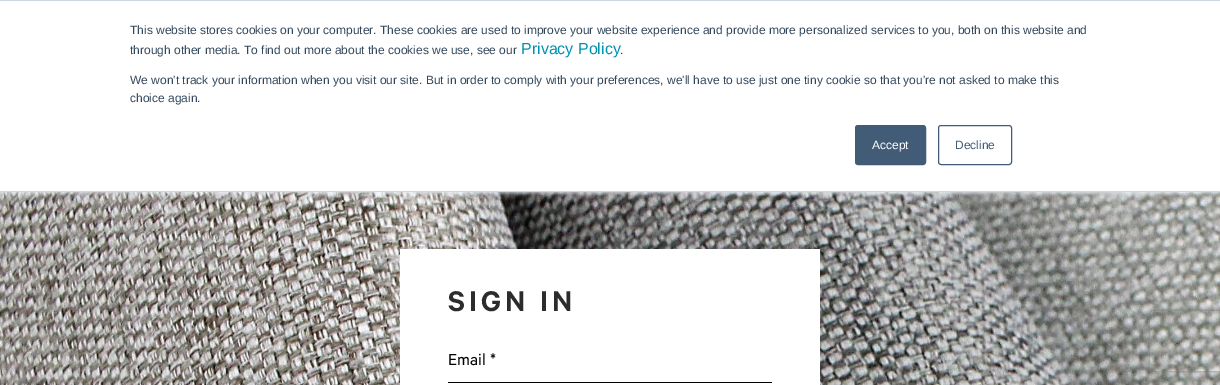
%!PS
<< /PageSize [1220 385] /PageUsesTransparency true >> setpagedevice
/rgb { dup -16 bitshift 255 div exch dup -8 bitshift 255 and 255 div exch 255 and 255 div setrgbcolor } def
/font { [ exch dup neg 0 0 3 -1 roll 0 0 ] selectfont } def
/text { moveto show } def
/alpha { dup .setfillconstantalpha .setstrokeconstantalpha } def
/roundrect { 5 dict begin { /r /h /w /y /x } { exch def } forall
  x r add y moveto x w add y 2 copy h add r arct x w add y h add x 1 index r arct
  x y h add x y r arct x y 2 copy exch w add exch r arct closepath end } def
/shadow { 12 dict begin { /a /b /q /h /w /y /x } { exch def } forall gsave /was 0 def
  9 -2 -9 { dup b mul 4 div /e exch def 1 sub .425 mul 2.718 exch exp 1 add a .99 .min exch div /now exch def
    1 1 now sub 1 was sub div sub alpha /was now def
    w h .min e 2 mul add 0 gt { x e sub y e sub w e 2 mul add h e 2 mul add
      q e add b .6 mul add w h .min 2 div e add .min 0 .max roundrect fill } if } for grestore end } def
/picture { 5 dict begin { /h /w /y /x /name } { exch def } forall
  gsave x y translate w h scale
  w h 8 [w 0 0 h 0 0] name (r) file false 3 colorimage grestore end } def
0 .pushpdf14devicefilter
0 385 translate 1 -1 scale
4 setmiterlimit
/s1 { /LiberationSans-Regular 12 font 16#33475B rgb } def
/s2 { /LiberationSans-Regular 16 font 16#0091AE rgb } def
/s3 { /LiberationSans-Regular 12 font 16#FFFFFF rgb } def
/s4 { /LiberationSans-Regular 12 font 16#425B76 rgb } def
/s5 { /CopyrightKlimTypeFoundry-Regular 18 font 16#000000 rgb } def
16#FFFFFF rgb
0 0 1220 385 rectfill
(pic1.raw) 0 192 1220 193 picture
16#EAF0F6 rgb
0 1 1220 192 0 2.5 1 shadow
16#FFFFFF rgb
0 1 1220 190 rectfill
16#CBD6E2 rgb
0 0 1220 1 rectfill
0 191 1220 1 rectfill
s1
(This website stores cookies on your computer. These cookies are used to improve your website experience and provide more personalized services to you, both on this website and) 130 34 text
(through other media. To find out more about the cookies we use, see our) 130 54 text
s2
(Privacy Policy) 521 54 text
s1
(.) 620 54 text
(We won't track your information when you visit our site. But in order to comply with your preferences, we'll have to use just one tiny cookie so that you're not asked to make this) 130 84 text
(choice again.) 130 102 text
16#425B76 rgb
855.5 125.5 70 39 2.5 roundrect gsave fill grestore
stroke
s3
(Accept) 872 149 text
16#425B76 rgb
938.5 125.5 73 39 2.5 roundrect stroke
(Decline) 955 149 text
16#FFFFFF rgb
400 249 420 136 rectfill
/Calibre-SemiBold 32 font
16#2C2C2C rgb
448 311 moveto 4 0 (SIGN IN) ashow
16#000000 rgb
448 382 324 1 rectfill
s5
(Email *) 448 365 text
gsave
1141 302 moveto 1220 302 lineto 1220 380 lineto 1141 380 lineto closepath 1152 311 moveto 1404 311 lineto 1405 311 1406 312 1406 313 curveto 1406 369 lineto 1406 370 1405 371 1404 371 curveto 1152 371 lineto 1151 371 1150 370 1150 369 curveto 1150 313 lineto 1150 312 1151 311 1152 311 curveto closepath eoclip newpath
16#808080 rgb
1150 311 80 60 2 2.5 1 shadow
grestore
.poppdf14devicefilter showpage
